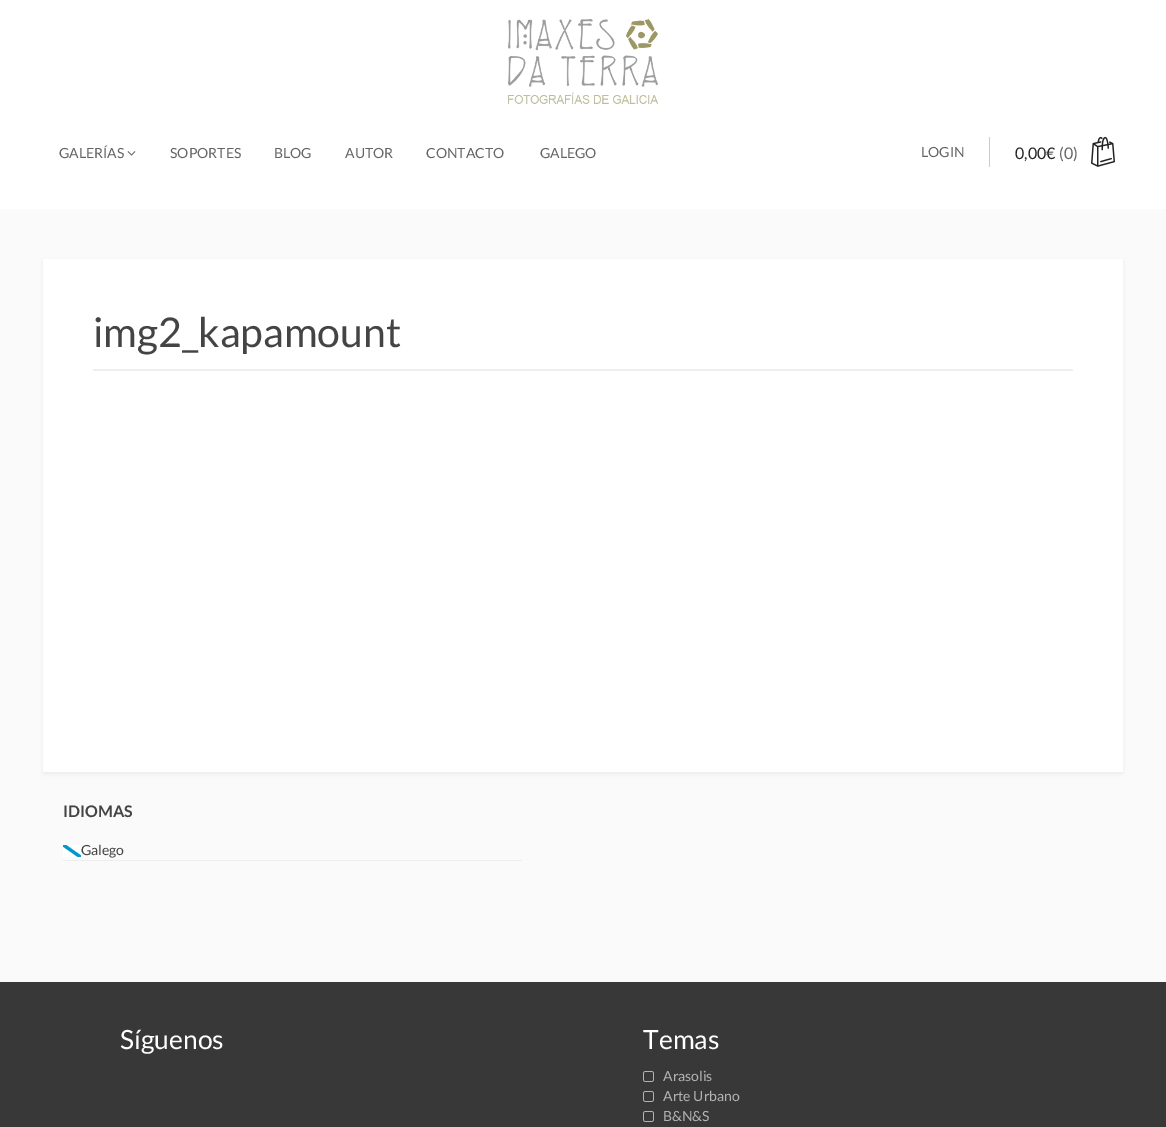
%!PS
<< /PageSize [1166 1127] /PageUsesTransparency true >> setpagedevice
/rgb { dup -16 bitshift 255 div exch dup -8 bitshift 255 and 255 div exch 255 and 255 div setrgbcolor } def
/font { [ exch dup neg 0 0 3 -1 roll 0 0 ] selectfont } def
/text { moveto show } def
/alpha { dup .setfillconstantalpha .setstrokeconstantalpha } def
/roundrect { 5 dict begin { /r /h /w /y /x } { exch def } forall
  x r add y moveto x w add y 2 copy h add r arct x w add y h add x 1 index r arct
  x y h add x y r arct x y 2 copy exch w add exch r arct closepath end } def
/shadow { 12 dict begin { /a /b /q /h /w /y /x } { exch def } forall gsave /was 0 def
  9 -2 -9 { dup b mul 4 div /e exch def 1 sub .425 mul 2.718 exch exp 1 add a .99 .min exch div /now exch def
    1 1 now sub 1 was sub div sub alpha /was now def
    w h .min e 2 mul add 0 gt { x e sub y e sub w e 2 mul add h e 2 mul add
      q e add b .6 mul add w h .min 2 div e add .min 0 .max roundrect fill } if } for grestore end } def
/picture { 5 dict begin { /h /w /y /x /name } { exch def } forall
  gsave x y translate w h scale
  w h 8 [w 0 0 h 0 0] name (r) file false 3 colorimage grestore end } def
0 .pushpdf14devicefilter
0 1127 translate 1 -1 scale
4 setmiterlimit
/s1 { /Lato-Regular 14 font 16#646464 rgb } def
/s2 { /Lato-Regular 16 font 16#222222 rgb } def
/s3 { /Lato-Regular 16 font 16#646464 rgb } def
/s4 { /Lato-Regular 41 font 16#444444 rgb } def
/s5 { /Lato-Bold 16 font 16#444444 rgb } def
/s6 { /Lato-Regular 14 font 16#444444 rgb } def
/s7 { /Lato-Regular 26.5 font 16#FFFFFF rgb } def
/s8 { /Lato-Regular 14 font 16#B3B3B3 rgb } def
16#FAFAFA rgb
0 0 1166 1127 rectfill
16#FFFFFF rgb
0 0 1166 209 rectfill
(pic1.raw) 508 19 150 85 picture
s1
(GALERÍAS) 59 158 text
(pic2.raw) 127 151 9 5 picture
(SOPORTES) 170 158 text
(BLOG) 274 158 text
(AUTOR) 345 158 text
(CONTACTO) 426 158 text
(GALEGO) 540 158 text
16#CACACA rgb
989 137 1 30 rectfill
s1
(LOGIN) 921 157 text
s2
(0,00€) 1015 159 text
s3
(\(0\)) 1059 159 text
(pic3.raw) 1091 136 24 31 picture
16#000000 rgb
43 261 1080 513 0 2 0.06 shadow
16#FFFFFF rgb
43 259 1080 513 rectfill
16#EEEEEE rgb
93 369 980 2 rectfill
s4
(img2_kapamount) 93 347 text
s5
(IDIOMAS) 63 817 text
16#EEEEEE rgb
63 860 459 1 rectfill
(pic4.raw) 63 845 18 12 picture
s6
(Galego) 81 855 text
16#383838 rgb
0 982 1166 145 rectfill
s7
(Síguenos) 120 1049 text
(Temas) 643 1049 text
(pic5.raw) 643 1071 11 11 picture
s8
(Arasolis) 663 1081 text
(pic5.raw) 643 1091 11 11 picture
(Arte Urbano) 663 1101 text
(pic5.raw) 643 1111 11 11 picture
(B&N&S) 663 1121 text
.poppdf14devicefilter showpage
